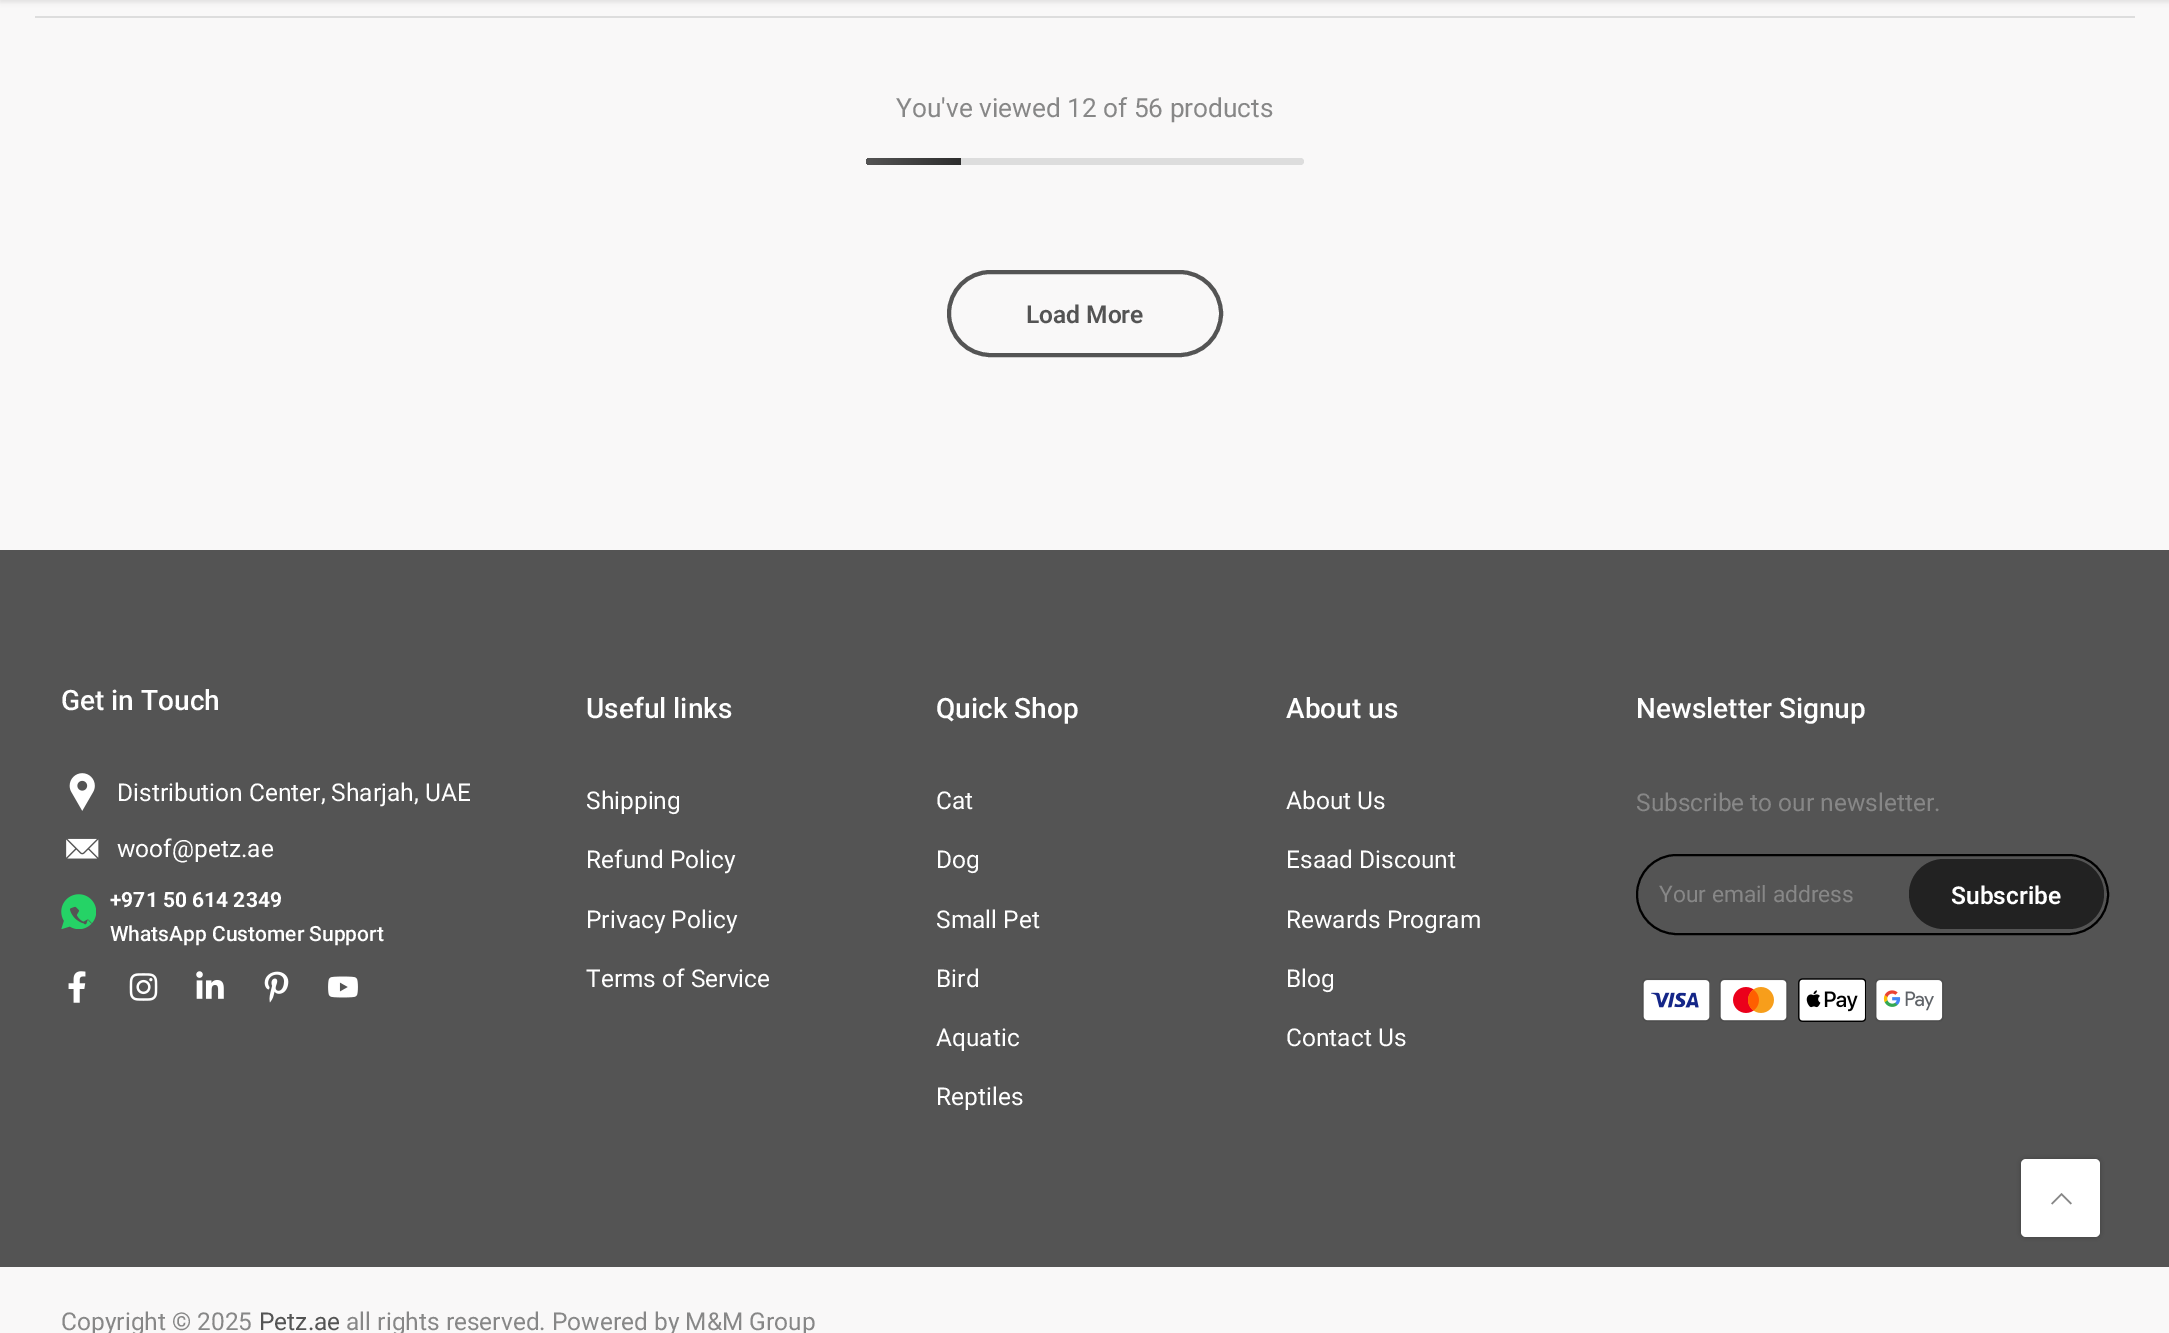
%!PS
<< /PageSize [2169 1333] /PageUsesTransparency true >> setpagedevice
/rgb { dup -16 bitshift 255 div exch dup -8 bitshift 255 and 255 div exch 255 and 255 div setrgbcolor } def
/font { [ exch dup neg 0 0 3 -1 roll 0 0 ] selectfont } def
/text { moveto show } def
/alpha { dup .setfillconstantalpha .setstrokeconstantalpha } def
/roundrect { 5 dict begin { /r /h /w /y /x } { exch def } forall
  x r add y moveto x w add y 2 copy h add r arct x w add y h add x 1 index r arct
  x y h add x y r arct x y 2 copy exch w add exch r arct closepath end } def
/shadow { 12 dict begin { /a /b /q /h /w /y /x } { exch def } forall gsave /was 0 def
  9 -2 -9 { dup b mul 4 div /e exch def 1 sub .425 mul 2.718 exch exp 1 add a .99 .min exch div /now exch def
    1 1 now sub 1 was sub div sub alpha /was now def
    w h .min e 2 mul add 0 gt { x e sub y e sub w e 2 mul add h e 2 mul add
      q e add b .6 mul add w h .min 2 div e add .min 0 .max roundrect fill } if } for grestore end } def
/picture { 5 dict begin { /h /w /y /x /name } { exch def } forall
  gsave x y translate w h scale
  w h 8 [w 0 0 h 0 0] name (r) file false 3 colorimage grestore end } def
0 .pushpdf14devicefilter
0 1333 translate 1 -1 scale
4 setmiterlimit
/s1 { /Roboto-Regular 26.25 font 16#878787 rgb } def
/s2 { /Roboto-SemiBold 24.5 font 16#545454 rgb } def
/s3 { /Roboto-Medium 28 font 16#FFFFFF rgb } def
/s4 { /Roboto-Regular 24.5 font 16#FFFFFF rgb } def
/s5 { /Roboto-Bold 21 font 16#FFFFFF rgb } def
/s6 { /Roboto-Medium 21 font 16#FFFFFF rgb } def
/s7 { /Roboto-Regular 24.5 font 16#878787 rgb } def
/s8 { /Roboto-Regular 22.75 font 16#878787 rgb } def
/s9 { /Roboto-SemiBold 24.5 font 16#FFFFFF rgb } def
/s10 { /Roboto-Regular 24.5 font 16#545454 rgb } def
16#F9F8F8 rgb
0 0 2169 1333 rectfill
16#000000 rgb
0 -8 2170 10 0 2.5 0.1 shadow
16#DDDDDD rgb
35 16 2100 2 rectfill
s1
(You've viewed 12 of 56 products) 896 117 text
16#DDDDDD rgb
866 158 438 7 3.5 roundrect fill
gsave 869.5 158 moveto 961 158 lineto 961 165 lineto 869.5 165 lineto 867.5 165 866 163.5 866 161.5 curveto 866 159.5 867.5 158 869.5 158 curveto closepath clip newpath
<< /ShadingType 2 /ColorSpace /DeviceRGB /Coords [866 161 961 161] /Extend [true true] /Function << /FunctionType 2 /Domain [0 1] /C0 [0.329 0.329 0.329] /C1 [0.18 0.18 0.18] /N 1 >> >> shfill grestore
16#545454 rgb
4 setlinewidth
949 272 272 83 41.5 roundrect stroke
s2
(Load More) 1026 323 text
0 550 2169 717 rectfill
s3
(Get in Touch) 61 710 text
(pic1.raw) 69 773 26 38 picture
s4
(Distribution Center, Sharjah, UAE) 117 801 text
(pic2.raw) 66 838 33 21 picture
(woof@petz.ae) 117 857 text
(pic3.raw) 61 894 35 35 picture
s5
(+971 50 614 2349) 110 907 text
s6
(WhatsApp Customer Support) 110 941 text
(pic4.raw) 68 971 18 32 picture
(pic5.raw) 129 973 29 28 picture
(pic6.raw) 196 971 28 28 picture
(pic7.raw) 264 971 25 32 picture
(pic8.raw) 328 976 30 22 picture
s3
(Useful links) 586 718 text
s4
(Shipping) 586 809 text
(Refund Policy) 586 868 text
(Privacy Policy) 586 928 text
(Terms of Service) 586 987 text
s3
(Quick Shop) 936 718 text
s4
(Cat) 936 809 text
(Dog) 936 868 text
(Small Pet) 936 928 text
(Bird) 936 987 text
(Aquatic) 936 1046 text
(Reptiles) 936 1105 text
s3
(About us) 1286 718 text
s4
(About Us) 1286 809 text
(Esaad Discount) 1286 868 text
(Rewards Program) 1286 928 text
(Blog) 1286 987 text
(Contact Us) 1286 1046 text
s3
(Newsletter Signup) 1636 718 text
s7
(Subscribe to our newsletter.) 1636 811 text
16#000000 rgb
2 setlinewidth
1637 855 471 79 39.5 roundrect stroke
s8
(Your email address) 1659 902 text
16#222222 rgb
1909 859 195 70 35 roundrect fill
s9
(Subscribe) 1951 904 text
(pic9.raw) 1642 978 68 44 picture
(pic10.raw) 1719 978 69 44 picture
(pic11.raw) 1798 978 68 44 picture
(pic12.raw) 1875 978 69 44 picture
s7
(Copyright © 2025) 61 1330 text
s10
(Petz.ae) 259 1330 text
s7
(all rights reserved. Powered by M&M Group) 346 1330 text
16#000000 rgb
2021 1159 79 78 5 2.5 0.2 shadow
16#FFFFFF rgb
2021 1159 79 78 5 roundrect fill
(pic13.raw) 2051 1193 21 12 picture
.poppdf14devicefilter showpage
